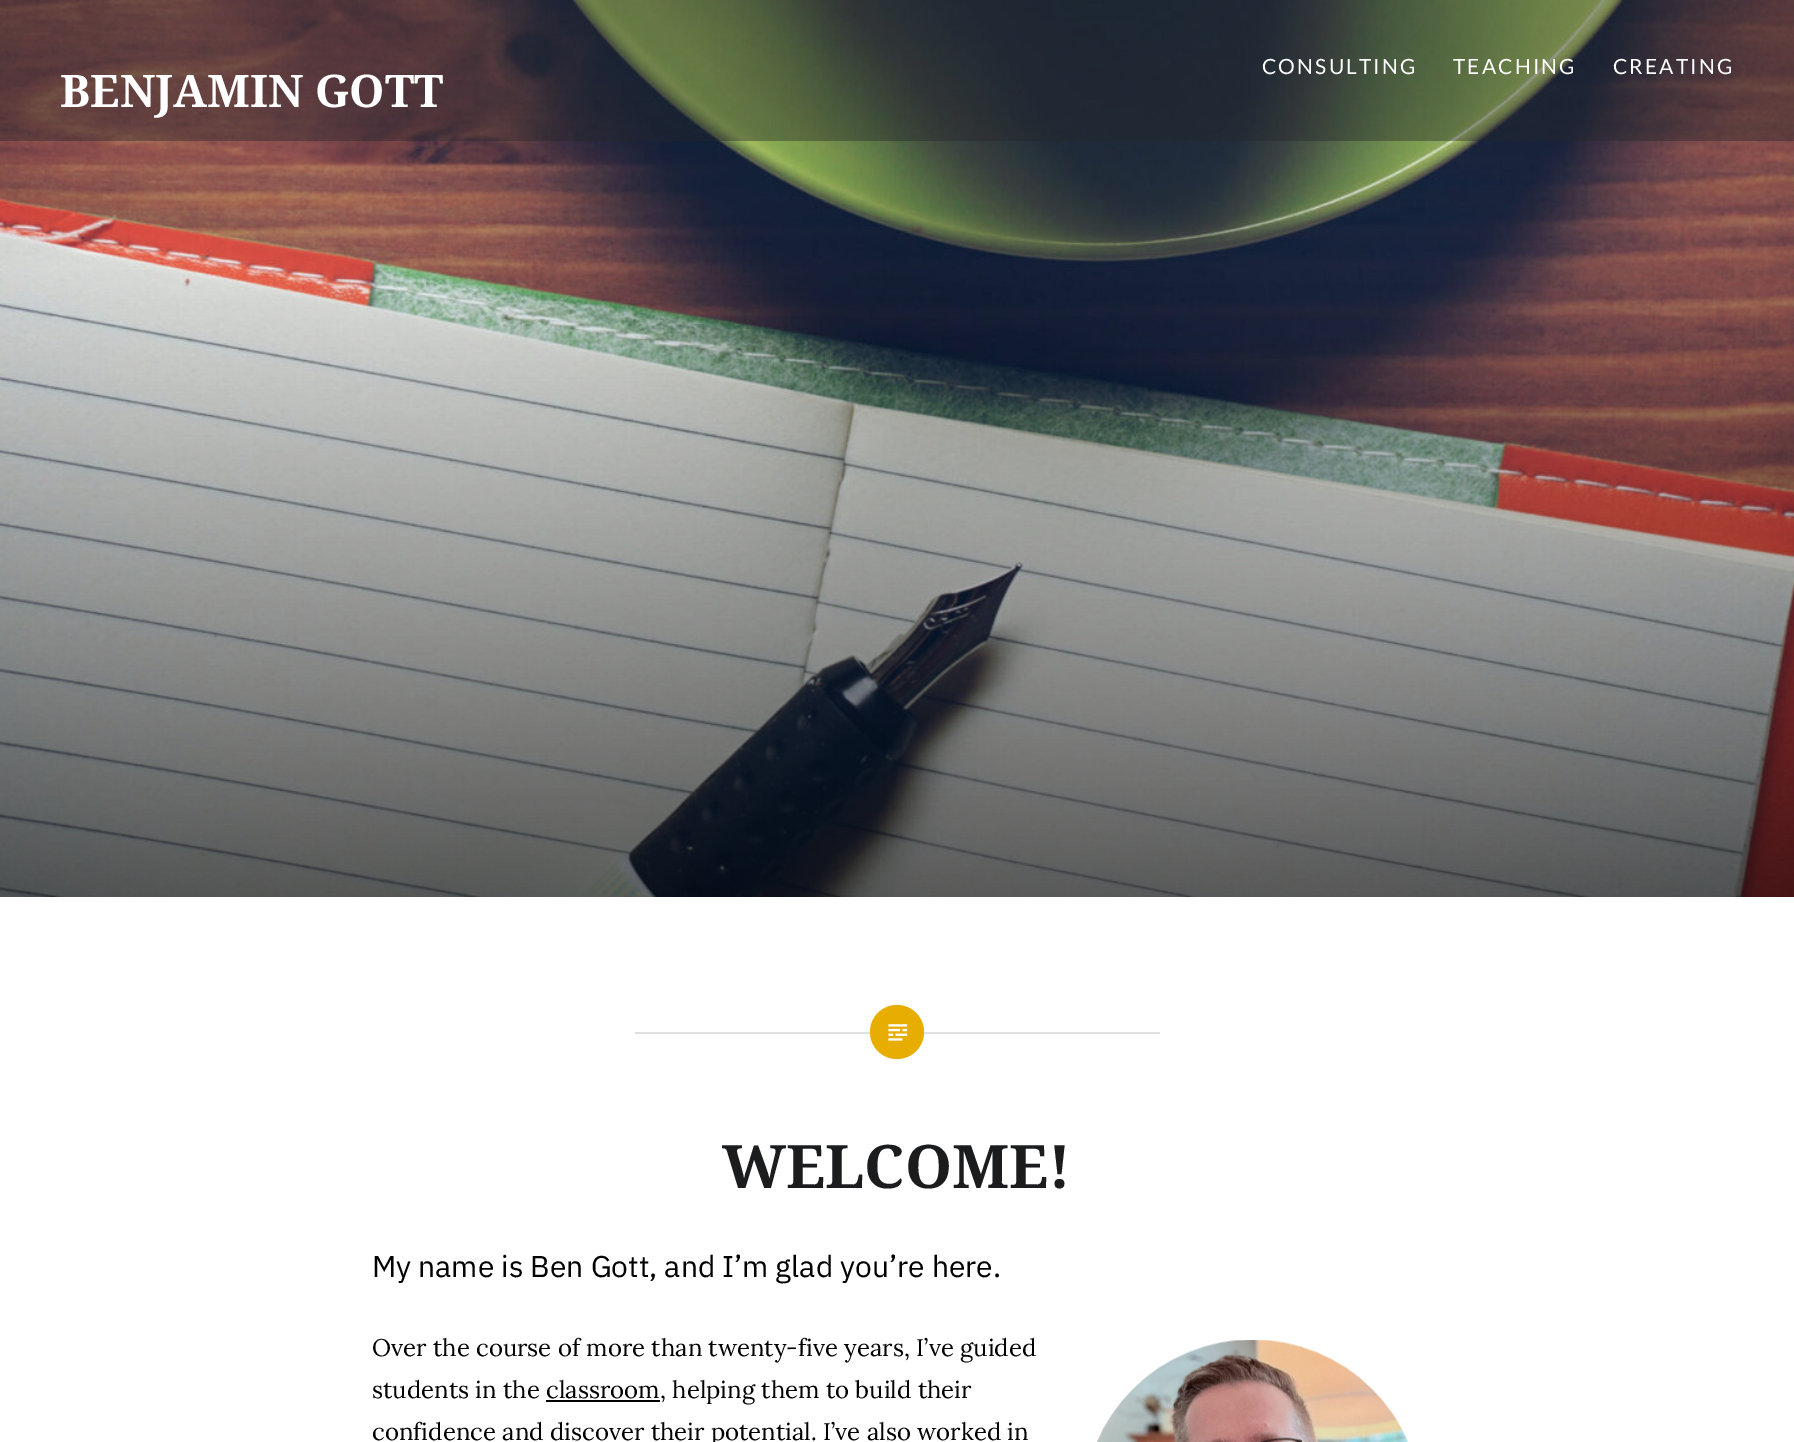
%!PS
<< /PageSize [1794 1442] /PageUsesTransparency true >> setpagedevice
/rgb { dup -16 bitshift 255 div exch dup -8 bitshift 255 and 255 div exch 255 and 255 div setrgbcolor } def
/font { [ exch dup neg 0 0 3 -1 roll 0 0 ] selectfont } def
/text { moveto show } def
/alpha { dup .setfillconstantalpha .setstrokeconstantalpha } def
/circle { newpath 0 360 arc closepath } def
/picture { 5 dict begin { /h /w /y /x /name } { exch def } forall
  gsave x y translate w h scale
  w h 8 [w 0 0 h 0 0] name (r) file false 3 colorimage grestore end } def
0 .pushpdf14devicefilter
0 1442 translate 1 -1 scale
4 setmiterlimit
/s1 { /NotoSerif-Bold 45 font 16#FFFFFF rgb } def
/s2 { /NotoSerif-Bold 60 font 16#1A1C1E rgb } def
/s3 { /IBMPlexSans-Regular 30 font 16#000000 rgb } def
/s4 { /Lora-Regular 24 font 16#000000 rgb } def
16#FFFFFF rgb
0 0 1794 1442 rectfill
(pic1.raw) 0 0 1794 897 picture
0.4 alpha
16#242629 rgb
0 0 1794 141 rectfill
/Lato-Regular 21 font
1 alpha
16#FFFFFF rgb
1262 74 moveto 2.1 0 (CONSULTING) ashow
1453 74 moveto 2.1 0 (TEACHING) ashow
1613 74 moveto 2.1 0 (CREATING) ashow
s1
(BENJAMIN GOTT) 60 107 text
16#E0E0E0 rgb
635 1032 525 2 rectfill
16#E7AE01 rgb
897 1032 27 circle fill
(pic2.raw) 888 1024 20 17 picture
s2
(WELCOME!) 722 1188 text
s3
(My name is Ben Gott, and I’m glad you’re here.) 372 1277 text
s4
(Over the course of more than twenty-five years, I’ve guided) 372 1356 text
(students in the classroom, helping them to build their) 372 1398 text
546 1400 114 2 rectfill
(confidence and discover their potential. I’ve also worked in) 372 1440 text
(pic3.raw) 1097 1340 311 102 picture
.poppdf14devicefilter showpage
